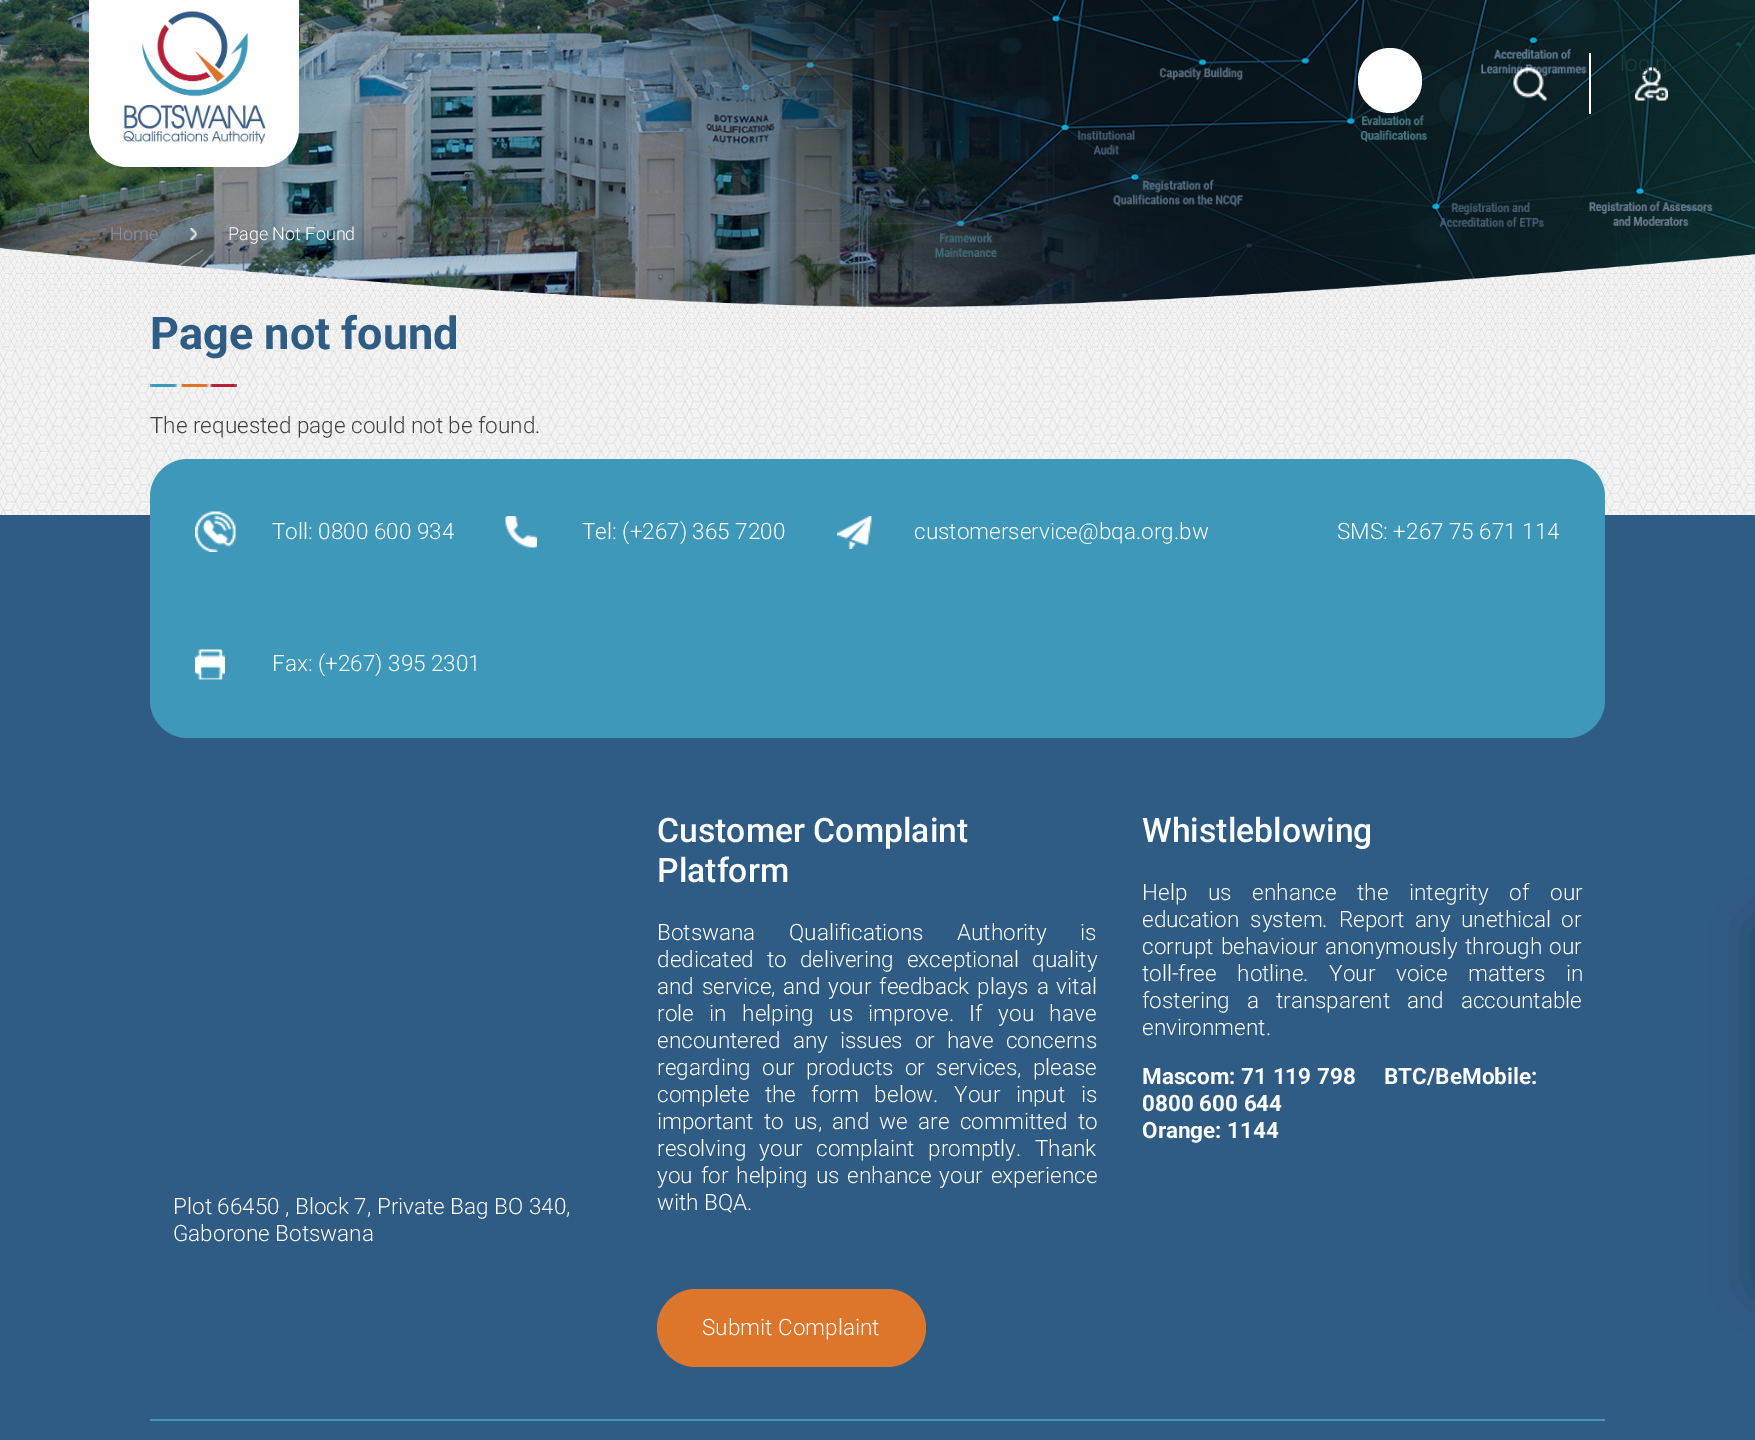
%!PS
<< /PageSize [1755 1440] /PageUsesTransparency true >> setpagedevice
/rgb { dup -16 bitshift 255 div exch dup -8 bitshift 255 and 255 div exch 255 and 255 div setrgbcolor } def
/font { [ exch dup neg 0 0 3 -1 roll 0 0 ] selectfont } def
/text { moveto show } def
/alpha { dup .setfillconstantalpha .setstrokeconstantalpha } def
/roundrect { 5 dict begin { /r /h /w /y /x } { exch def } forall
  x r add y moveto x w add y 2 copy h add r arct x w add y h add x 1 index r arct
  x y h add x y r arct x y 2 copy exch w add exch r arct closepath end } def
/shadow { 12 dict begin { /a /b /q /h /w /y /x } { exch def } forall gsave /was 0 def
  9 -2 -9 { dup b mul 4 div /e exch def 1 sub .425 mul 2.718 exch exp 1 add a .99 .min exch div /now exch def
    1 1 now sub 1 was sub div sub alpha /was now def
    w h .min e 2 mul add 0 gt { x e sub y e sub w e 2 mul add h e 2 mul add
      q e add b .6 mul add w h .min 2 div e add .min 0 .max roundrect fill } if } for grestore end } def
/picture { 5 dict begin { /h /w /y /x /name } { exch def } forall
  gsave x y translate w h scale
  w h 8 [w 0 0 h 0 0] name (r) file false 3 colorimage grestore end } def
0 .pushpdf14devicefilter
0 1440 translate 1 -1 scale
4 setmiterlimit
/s1 { /Roboto-Light 22.5 font 16#1F3A3D rgb } def
/s2 { /Roboto-Light 18 font 16#7F94B5 rgb } def
/s3 { /Roboto-Light 18 font 16#FFFFFF rgb } def
/s4 { /Roboto-Bold 45 font 16#2F5C84 rgb } def
/s5 { /Roboto-Light 22.5 font 16#404040 rgb } def
/s6 { /Roboto-Light 22.5 font 16#FFFFFF rgb } def
/s7 { /Roboto-Medium 33.75 font 16#FFFFFF rgb } def
/s8 { /Roboto-Bold 22.5 font 16#FFFFFF rgb } def
16#FFFFFF rgb
0 0 1755 1440 rectfill
(pic1.raw) 0 349 1755 166 picture
(pic2.raw) 0 0 1755 307 picture
(pic3.raw) 0 247 1755 103 picture
89 0 moveto 299 0 lineto 299 129 lineto 299 150 282 167 261 167 curveto 127 167 lineto 106 167 89 150 89 129 curveto closepath fill
(pic4.raw) 123 10 143 134 picture
1358 48 64 65 32 roundrect fill
1589 53 2 61 rectfill
(pic5.raw) 1513 67 34 34 picture
(pic6.raw) 1635 67 33 34 picture
s1
(login) 1620 71 text
(pic7.raw) 190 228 7 12 picture
s2
(Home) 110 240 text
s3
(Page Not Found) 228 240 text
(pic8.raw) 150 384 87 3 picture
s4
(Page not found) 150 349 text
s5
(The requested page could not be found.) 150 433 text
16#2F5C84 rgb
0 515 1755 925 rectfill
16#3E98B9 rgb
150 1419 1455 2 rectfill
16#020202 rgb
1755 921 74 371 8 22 0.23 shadow
16#3E98B9 rgb
150 459 1455 279 38 roundrect fill
(pic9.raw) 195 511 41 41 picture
s6
(Toll: 0800 600 934) 272 539 text
(pic10.raw) 505 516 32 32 picture
(Tel: \(+267\) 365 7200) 582 539 text
(pic11.raw) 837 516 35 33 picture
(customerservice@bqa.org.bw) 914 539 text
(SMS: +267 75 671 114) 1337 539 text
(pic12.raw) 195 649 30 31 picture
(Fax: \(+267\) 395 2301) 272 671 text
s7
(Customer Complaint) 657 842 text
(Platform) 657 882 text
/Roboto-Light 22.5 font
657 940 moveto 28 0 32 (Botswana Qualifications Authority is) widthshow
657 967 moveto 7.5 0 32 (dedicated to delivering exceptional quality) widthshow
657 994 moveto 2.25 0 32 (and service, and your feedback plays a vital) widthshow
657 1021 moveto 10 0 32 (role in helping us improve. If you have) widthshow
657 1048 moveto 6.5 0 32 (encountered any issues or have concerns) widthshow
657 1075 moveto 5.75 0 32 (regarding our products or services, please) widthshow
657 1102 moveto 10 0 32 (complete the form below. Your input is) widthshow
657 1129 moveto 4.75 0 32 (important to us, and we are committed to) widthshow
657 1156 moveto 8 0 32 (resolving your complaint promptly. Thank) widthshow
657 1183 moveto 2.5 0 32 (you for helping us enhance your experience) widthshow
(with BQA.) 657 1210 text
16#DD752B rgb
657 1289 269 78 39 roundrect fill
s6
(Submit Complaint) 702 1335 text
s7
(Whistleblowing) 1142 842 text
/Roboto-Light 22.5 font
1142 900 moveto 15.25 0 32 (Help us enhance the integrity of our) widthshow
1142 927 moveto 5.25 0 32 (education system. Report any unethical or) widthshow
1142 954 moveto 2 0 32 (corrupt behaviour anonymously through our) widthshow
1142 981 moveto 15 0 32 (toll-free hotline. Your voice matters in) widthshow
1142 1008 moveto 11.5 0 32 (fostering a transparent and accountable) widthshow
(environment.) 1142 1035 text
s8
(Mascom: 71 119 798) 1142 1084 text
(BTC/BeMobile:) 1384 1084 text
(0800 600 644) 1142 1111 text
(Orange: 1144) 1142 1138 text
s6
(Plot 66450 , Block 7, Private Bag BO 340,) 173 1214 text
(Gaborone Botswana) 173 1241 text
.poppdf14devicefilter showpage
